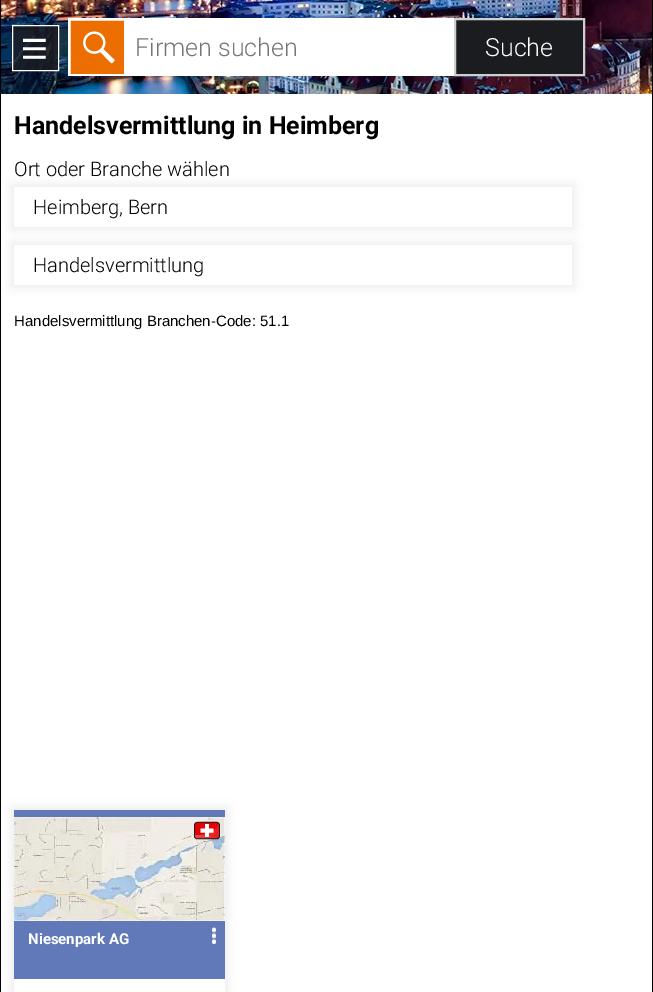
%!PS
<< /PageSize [653 992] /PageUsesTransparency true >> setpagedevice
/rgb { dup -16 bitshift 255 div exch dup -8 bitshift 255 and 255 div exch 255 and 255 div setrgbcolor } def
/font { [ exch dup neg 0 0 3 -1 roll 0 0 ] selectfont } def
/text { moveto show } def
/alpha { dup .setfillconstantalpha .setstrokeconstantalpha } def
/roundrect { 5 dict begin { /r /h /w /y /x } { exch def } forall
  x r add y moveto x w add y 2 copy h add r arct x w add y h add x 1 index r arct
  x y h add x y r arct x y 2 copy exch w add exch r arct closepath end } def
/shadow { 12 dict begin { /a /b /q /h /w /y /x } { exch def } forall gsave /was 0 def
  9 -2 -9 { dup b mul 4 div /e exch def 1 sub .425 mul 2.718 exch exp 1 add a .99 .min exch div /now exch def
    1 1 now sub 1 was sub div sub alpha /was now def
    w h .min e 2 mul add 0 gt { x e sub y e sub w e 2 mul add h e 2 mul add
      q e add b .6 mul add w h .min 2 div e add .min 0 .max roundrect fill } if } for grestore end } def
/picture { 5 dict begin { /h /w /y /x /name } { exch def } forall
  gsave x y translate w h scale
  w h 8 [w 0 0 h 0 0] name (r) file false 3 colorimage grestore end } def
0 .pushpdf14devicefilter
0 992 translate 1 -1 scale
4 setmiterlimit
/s1 { /Roboto-Light 25 font 16#757575 rgb } def
/s2 { /Roboto-Light 25 font 16#FFFFFF rgb } def
/s3 { /Roboto-Bold 25 font 16#000000 rgb } def
/s4 { /Roboto-Light 20 font 16#000000 rgb } def
/s5 { /LiberationSans-Regular 15 font 16#000000 rgb } def
/s6 { /Roboto-Bold 15 font 16#FFFFFF rgb } def
16#FFFFFF rgb
0 0 653 992 rectfill
16#000000 rgb
652 0 1 992 rectfill
0 0 1 992 rectfill
(pic2.raw) 1 0 651 94 picture
0.8 alpha
16#1B1C20 rgb
13 26 45 44 rectfill
1 alpha
(pic1.raw) 23 38 23 21 picture
16#FFFFFF rgb
12.5 25.5 46 45 rectstroke
68 18 386 58 rectfill
(pic3.raw) 70 20 54 54 picture
s1
(Firmen suchen) 135 56 text
16#1B1C20 rgb
455 19 moveto 584 19 lineto 584 75 lineto 455 75 lineto closepath gsave fill grestore
16#CDCFD1 rgb
2 setlinewidth
stroke
s2
(Suche) 485 56 text
s3
(Handelsvermittlung in Heimberg) 14 134 text
s4
(Ort oder Branche wählen) 14 176 text
gsave
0 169 moveto 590 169 lineto 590 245 lineto 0 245 lineto closepath 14 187 moveto 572 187 lineto 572 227 lineto 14 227 lineto closepath eoclip newpath
16#E4E6E7 rgb
12 185 562 44 0 5 0.8 shadow
grestore
(Heimberg, Bern) 33 214 text
gsave
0 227 moveto 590 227 lineto 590 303 lineto 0 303 lineto closepath 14 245 moveto 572 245 lineto 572 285 lineto 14 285 lineto closepath eoclip newpath
16#E4E6E7 rgb
12 243 562 44 0 5 0.8 shadow
grestore
(Handelsvermittlung) 33 272 text
s5
(Handelsvermittlung Branchen-Code: 51.1) 14 326 text
gsave
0 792 moveto 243 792 lineto 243 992 lineto 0 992 lineto closepath 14 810 moveto 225 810 lineto 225 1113 lineto 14 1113 lineto closepath eoclip newpath
16#E4E6E7 rgb
12 808 215 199 0 5 0.8 shadow
grestore
16#6179B9 rgb
14 810 211 169 rectfill
(pic4.raw) 14 817 211 104 picture
(pic5.raw) 194 821 26 19 picture
s6
(Niesenpark AG) 28 944 text
(pic6.raw) 212 927 4 17 picture
.poppdf14devicefilter showpage
